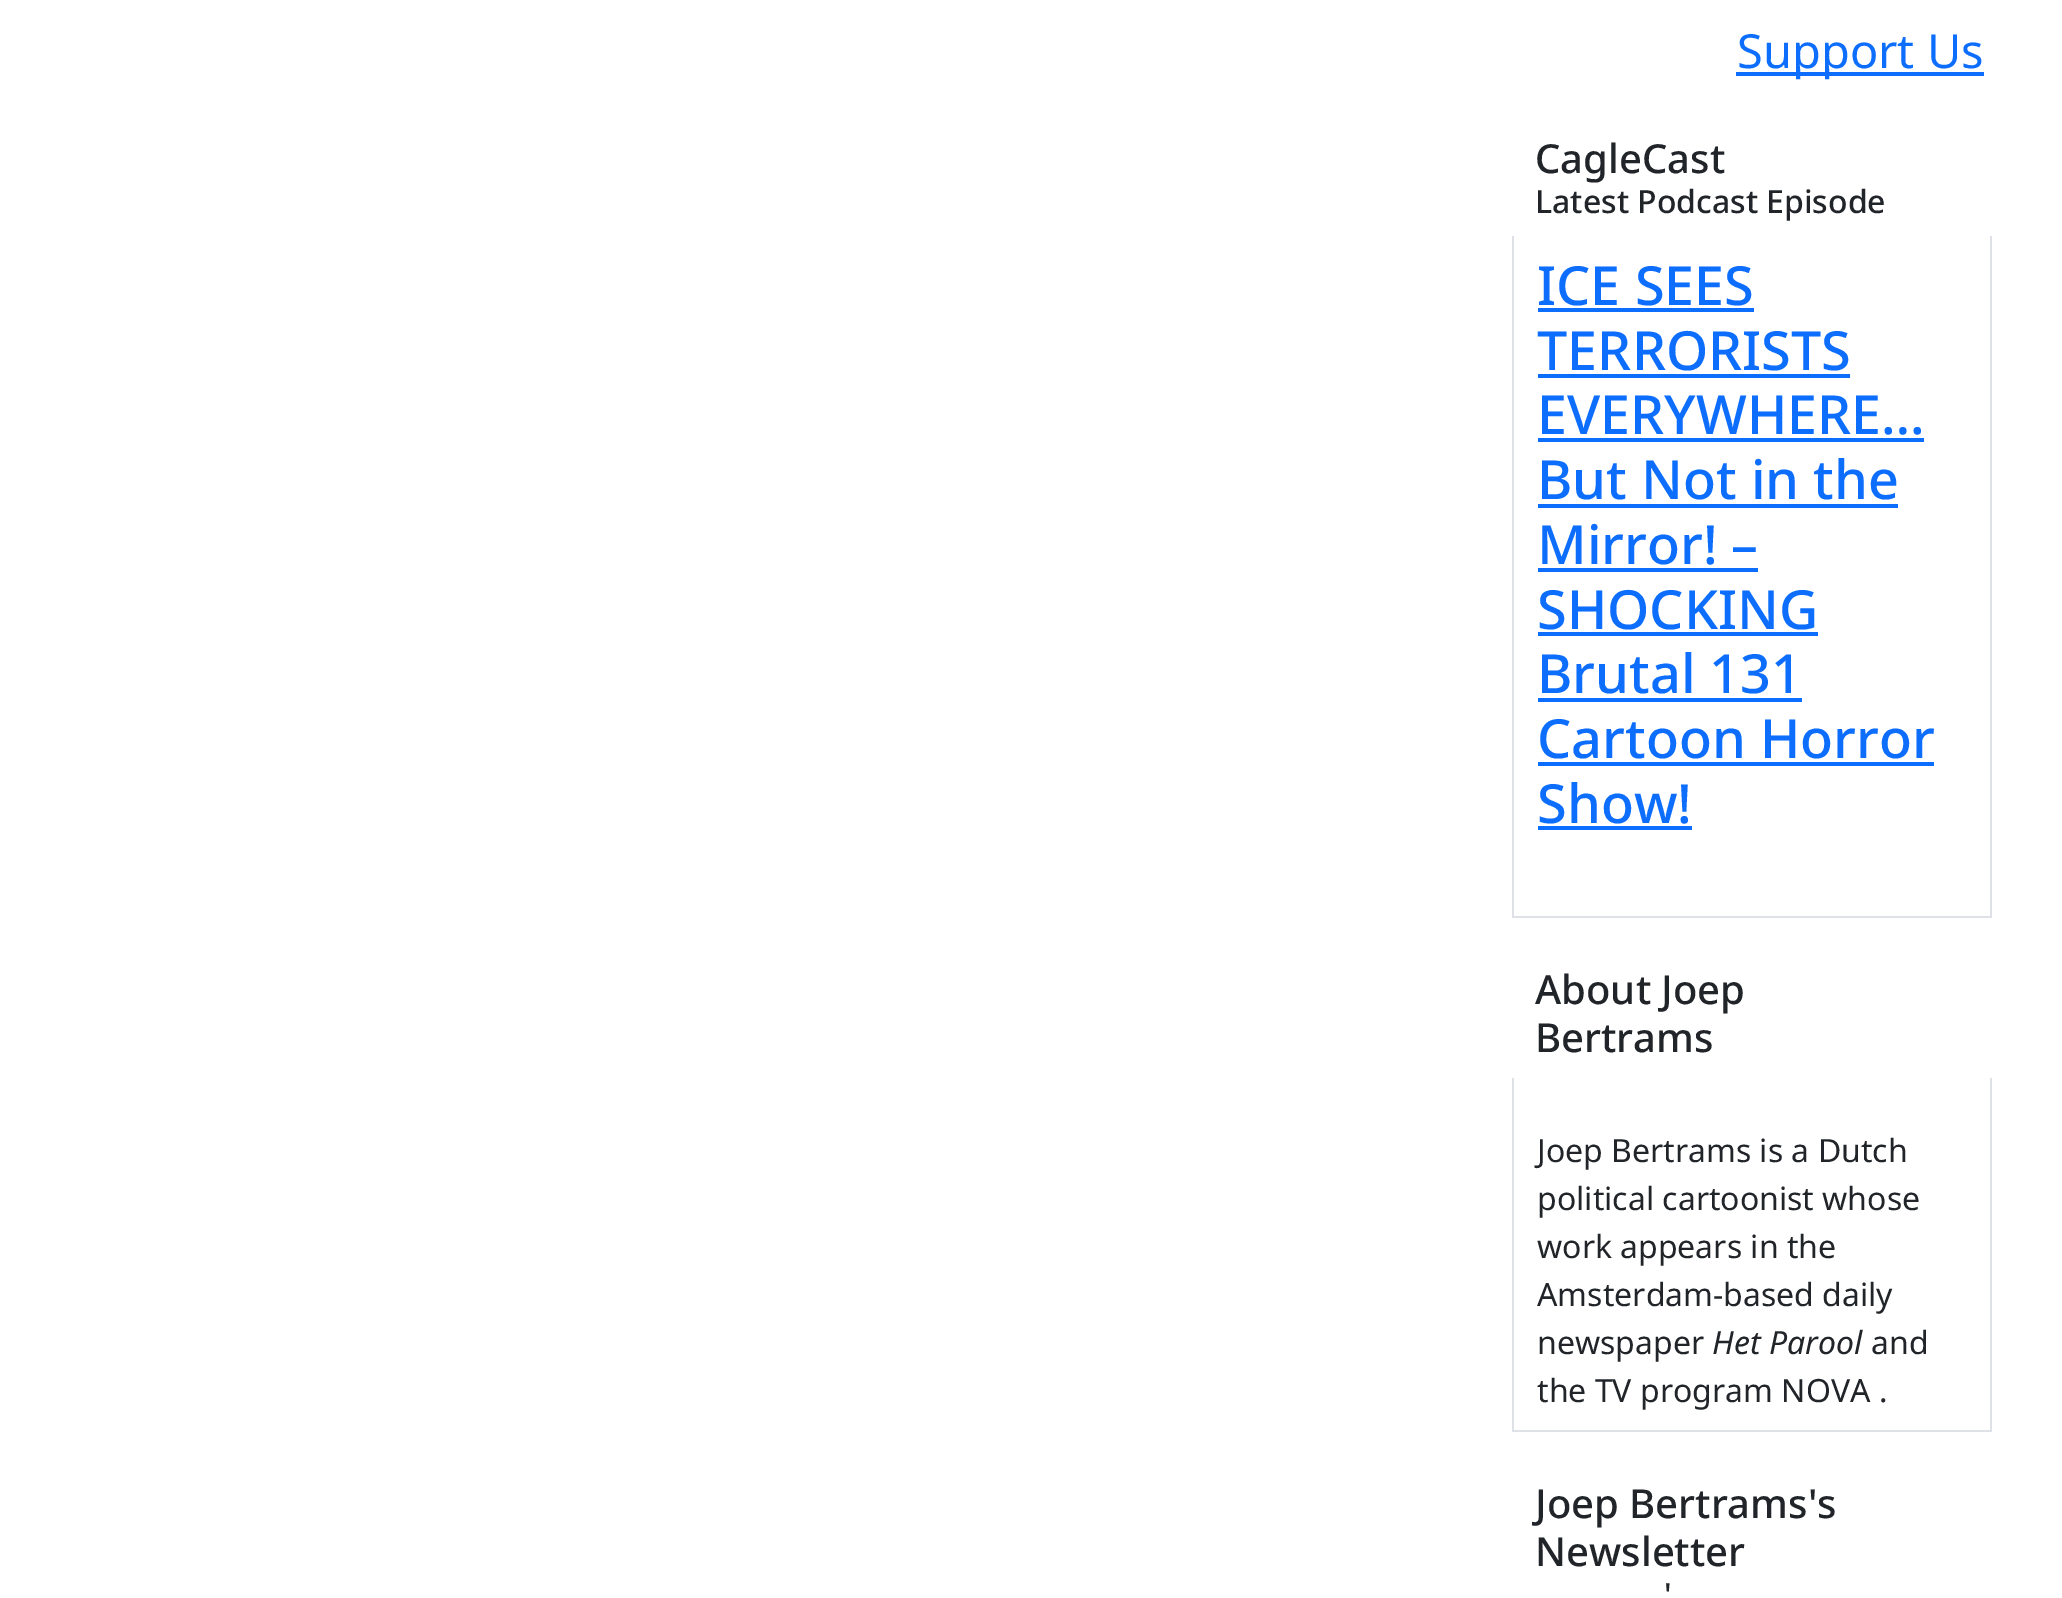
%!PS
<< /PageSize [2062 1598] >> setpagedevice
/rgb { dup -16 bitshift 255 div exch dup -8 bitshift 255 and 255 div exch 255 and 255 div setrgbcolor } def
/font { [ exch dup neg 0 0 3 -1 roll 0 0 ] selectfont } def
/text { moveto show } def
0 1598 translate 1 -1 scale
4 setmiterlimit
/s1 { /NotoSans-Regular 47 font 16#0D6EFD rgb } def
/s2 { /NotoSans-Medium 40 font 16#212529 rgb } def
/s3 { /NotoSans-Medium 32 font 16#212529 rgb } def
/s4 { /NotoSans-Medium 54 font 16#0D6EFD rgb } def
/s5 { /NotoSans-Regular 32 font 16#212529 rgb } def
/s6 { /NotoSans-Italic 32 font 16#212529 rgb } def
16#FFFFFF rgb
0 0 2062 1598 rectfill
16#0D6EFD rgb
1736 72 248 4 rectfill
s1
(Support Us) 1737 68 text
16#DEE2E6 rgb
1512 916 480 2 rectfill
s2
(CagleCast) 1535 173 text
s3
(Latest Podcast Episode) 1535 213 text
16#DEE2E6 rgb
1990 236 2 680 rectfill
1512 236 2 680 rectfill
s4
(ICE SEES) 1537 305 text
1538 308 216 4 rectfill
(TERRORISTS) 1537 370 text
1538 374 312 4 rectfill
(EVERYWHERE…) 1537 434 text
1538 438 386 4 rectfill
(But Not in the) 1537 499 text
1538 504 360 4 rectfill
(Mirror! –) 1537 564 text
1538 568 220 4 rectfill
(SHOCKING) 1537 629 text
1538 632 280 4 rectfill
(Brutal 131) 1537 693 text
1538 698 264 4 rectfill
(Cartoon Horror) 1537 758 text
1538 762 396 4 rectfill
(Show!) 1537 823 text
1538 826 154 4 rectfill
16#DEE2E6 rgb
1512 1430 480 2 rectfill
s2
(About Joep) 1535 1004 text
(Bertrams) 1535 1052 text
16#DEE2E6 rgb
1990 1078 2 352 rectfill
1512 1078 2 352 rectfill
s5
(Joep Bertrams is a Dutch) 1537 1162 text
(political cartoonist whose) 1537 1210 text
(work appears in the) 1537 1258 text
(Amsterdam-based daily) 1537 1306 text
(newspaper) 1537 1354 text
s6
(Het Parool) 1712 1354 text
s5
(and) 1871 1354 text
(the TV program NOVA .) 1537 1402 text
s2
(Joep Bertrams's) 1535 1518 text
(Newsletter) 1535 1566 text
s3
(') 1664 1606 text
showpage
